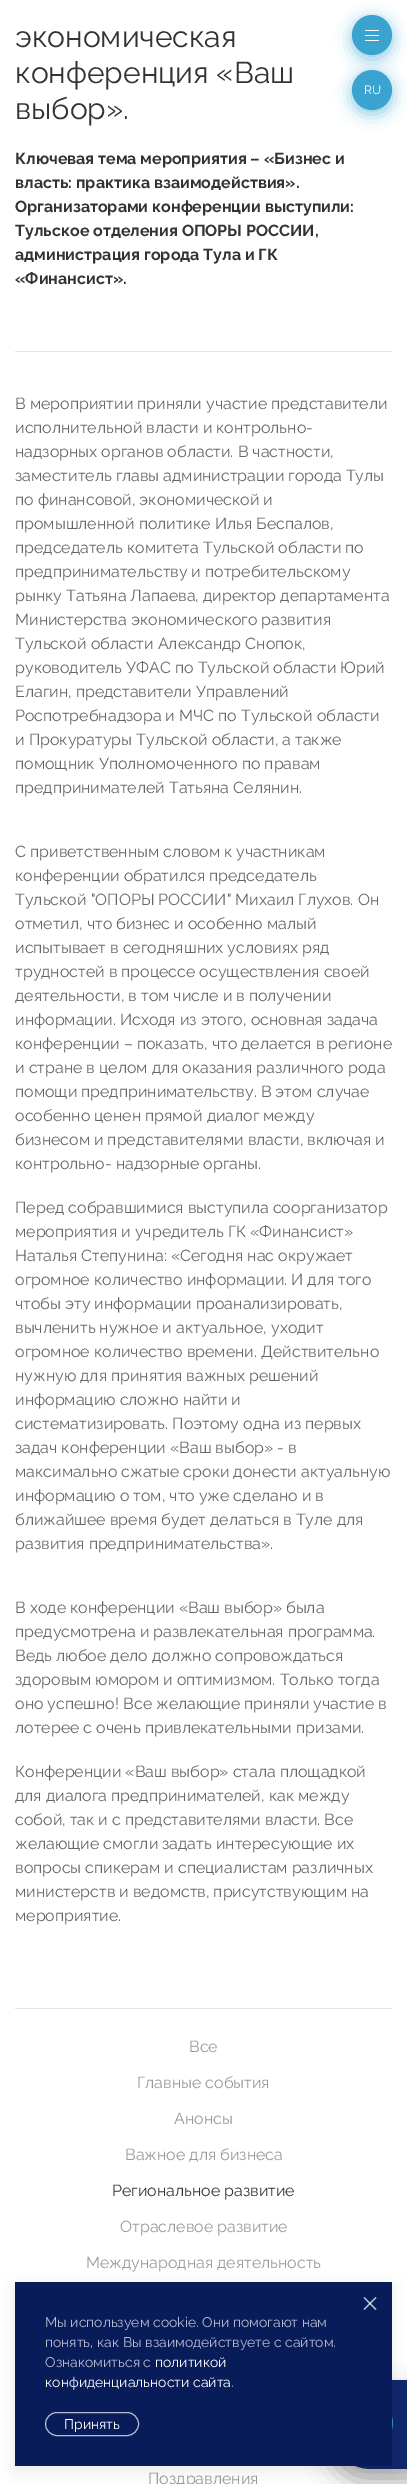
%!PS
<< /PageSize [407 2484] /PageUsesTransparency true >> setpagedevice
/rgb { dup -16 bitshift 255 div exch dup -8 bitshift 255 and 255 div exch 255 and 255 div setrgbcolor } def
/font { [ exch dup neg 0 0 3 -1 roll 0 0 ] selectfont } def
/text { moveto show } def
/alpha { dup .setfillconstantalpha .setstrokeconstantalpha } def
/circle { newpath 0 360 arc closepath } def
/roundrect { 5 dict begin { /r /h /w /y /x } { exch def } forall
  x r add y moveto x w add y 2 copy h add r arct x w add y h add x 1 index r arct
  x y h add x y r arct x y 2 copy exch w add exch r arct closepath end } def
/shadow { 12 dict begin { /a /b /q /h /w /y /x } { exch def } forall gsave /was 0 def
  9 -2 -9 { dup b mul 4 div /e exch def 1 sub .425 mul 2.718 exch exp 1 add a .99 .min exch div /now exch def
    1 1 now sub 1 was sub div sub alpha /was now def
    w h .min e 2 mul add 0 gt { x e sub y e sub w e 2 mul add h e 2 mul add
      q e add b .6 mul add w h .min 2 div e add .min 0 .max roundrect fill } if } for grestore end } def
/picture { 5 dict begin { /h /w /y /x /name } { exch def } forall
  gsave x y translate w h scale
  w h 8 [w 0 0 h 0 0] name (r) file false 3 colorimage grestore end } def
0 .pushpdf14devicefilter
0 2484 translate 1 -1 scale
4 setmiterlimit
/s1 { /Raleway-Regular 30 font 16#333333 rgb } def
/s2 { /Raleway-Bold 16 font 16#333333 rgb } def
/s3 { /Raleway-Regular 16 font 16#666666 rgb } def
/s4 { /Raleway-Regular 12 font 16#FFFFFF rgb } def
/s5 { /Raleway-Regular 16 font 16#999999 rgb } def
/s6 { /Raleway-Regular 16 font 16#333333 rgb } def
/s7 { /Raleway-Regular 14 font 16#B5BBCE rgb } def
/s8 { /Raleway-Regular 14 font 16#FFFFFF rgb } def
16#FFFFFF rgb
0 0 407 2484 rectfill
s1
(экономическая) 15 47 text
(конференция «Ваш) 15 83 text
(выбор».) 15 119 text
s2
(Ключевая тема мероприятия – «Бизнес и) 15 164 text
(власть: практика взаимодействия».) 15 188 text
(Организаторами конференции выступили:) 15 212 text
(Тульское отделения ОПОРЫ РОССИИ,) 15 236 text
(администрация города Тула и ГК) 15 260 text
(«Финансист».) 15 284 text
16#E5E5E5 rgb
15 351 377 1 rectfill
s3
(В мероприятии приняли участие представители) 15 409 text
(исполнительной власти и контрольно-) 15 433 text
(надзорных органов области. В частности,) 15 457 text
(заместитель главы администрации города Тулы) 15 481 text
(по финансовой, экономической и) 15 505 text
(промышленной политике Илья Беспалов,) 15 529 text
(председатель комитета Тульской области по) 15 553 text
(предпринимательству и потребительскому) 15 577 text
(рынку Татьяна Лапаева, директор департамента) 15 601 text
(Министерства экономического развития) 15 625 text
(Тульской области Александр Снопок,) 15 649 text
(руководитель УФАС по Тульской области Юрий) 15 673 text
(Елагин, представители Управлений) 15 697 text
(Роспотребнадзора и МЧС по Тульской области) 15 721 text
(и Прокуратуры Тульской области, а также) 15 745 text
(помощник Уполномоченного по правам) 15 769 text
(предпринимателей Татьяна Селянин.) 15 793 text
(С приветственным словом к участникам) 15 857 text
(конференции обратился председатель) 15 881 text
(Тульской "ОПОРЫ РОССИИ" Михаил Глухов. Он) 15 905 text
(отметил, что бизнес и особенно малый) 15 929 text
(испытывает в сегодняшних условиях ряд) 15 953 text
(трудностей в процессе осуществления своей) 15 977 text
(деятельности, в том числе и в получении) 15 1001 text
(информации. Исходя из этого, основная задача) 15 1025 text
(конференции – показать, что делается в регионе) 15 1049 text
(и стране в целом для оказания различного рода) 15 1073 text
(помощи предпринимательству. В этом случае) 15 1097 text
(особенно ценен прямой диалог между) 15 1121 text
(бизнесом и представителями власти, включая и) 15 1145 text
(контрольно- надзорные органы.) 15 1169 text
(Перед собравшимися выступила соорганизатор) 15 1213 text
(мероприятия и учредитель ГК «Финансист») 15 1237 text
(Наталья Степунина: «Сегодня нас окружает) 15 1261 text
(огромное количество информации. И для того) 15 1285 text
(чтобы эту информации проанализировать,) 15 1309 text
(вычленить нужное и актуальное, уходит) 15 1333 text
(огромное количество времени. Действительно) 15 1357 text
(нужную для принятия важных решений) 15 1381 text
(информацию сложно найти и) 15 1405 text
(систематизировать. Поэтому одна из первых) 15 1429 text
(задач конференции «Ваш выбор» - в) 15 1453 text
(максимально сжатые сроки донести актуальную) 15 1477 text
(информацию о том, что уже сделано и в) 15 1501 text
(ближайшее время будет делаться в Туле для) 15 1525 text
(развития предпринимательства».) 15 1549 text
(В ходе конференции «Ваш выбор» была) 15 1613 text
(предусмотрена и развлекательная программа.) 15 1637 text
(Ведь любое дело должно сопровождаться) 15 1661 text
(здоровым юмором и оптимизмом. Только тогда) 15 1685 text
(оно успешно! Все желающие приняли участие в) 15 1709 text
(лотерее с очень привлекательными призами.) 15 1733 text
(Конференции «Ваш выбор» стала площадкой) 15 1777 text
(для диалога предпринимателей, как между) 15 1801 text
(собой, так и с представителями власти. Все) 15 1825 text
(желающие смогли задать интересующие их) 15 1849 text
(вопросы спикерам и специалистам различных) 15 1873 text
(министерств и ведомств, присутствующим на) 15 1897 text
(мероприятие.) 15 1921 text
16#3BA3D0 rgb
352 19 40 40 20 8 0.6 shadow
372 35 20 circle fill
(pic1.raw) 365 30 14 11 picture
352 74 40 40 20 8 0.6 shadow
372 90 20 circle fill
s4
(RU) 364 94 text
16#E5E5E5 rgb
15 2008 377 1 rectfill
s5
(Все) 189 2052 text
(Главные события) 137 2088 text
(Анонсы) 174 2124 text
(Важное для бизнеса) 125 2160 text
s6
(Региональное развитие) 112 2196 text
s5
(Отраслевое развитие) 120 2232 text
(Международная деятельность) 86 2268 text
(Поздравления) 148 2484 text
16#000000 rgb
327 2394 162 89 44.5 12.5 0.32 shadow
16#10266B rgb
327 2380 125 89 44.5 roundrect fill
(pic2.raw) 392 2416 1 14 picture
16#000000 rgb
15 2287 377 184 0 7.5 0.08 shadow
16#091C5A rgb
15 2282 377 184 rectfill
16#B5BBCE rgb
1.1 setlinewidth
364 2297.5 moveto 376 2309.5 lineto stroke
0.7 alpha
16#FFFFFF rgb
376 2297.5 moveto 364 2309.5 lineto stroke
1 alpha
s7
(Мы используем cookie. Они помогают нам) 45 2327 text
(понять, как Вы взаимодействуете с сайтом.) 45 2347 text
(Ознакомиться с) 45 2367 text
s8
(политикой) 155 2367 text
(конфиденциальности сайта) 45 2387 text
s7
(.) 231 2387 text
1 setlinewidth
45.5 2412.5 93 23 11.5 roundrect stroke
s8
(Принять) 64 2429 text
.poppdf14devicefilter showpage
